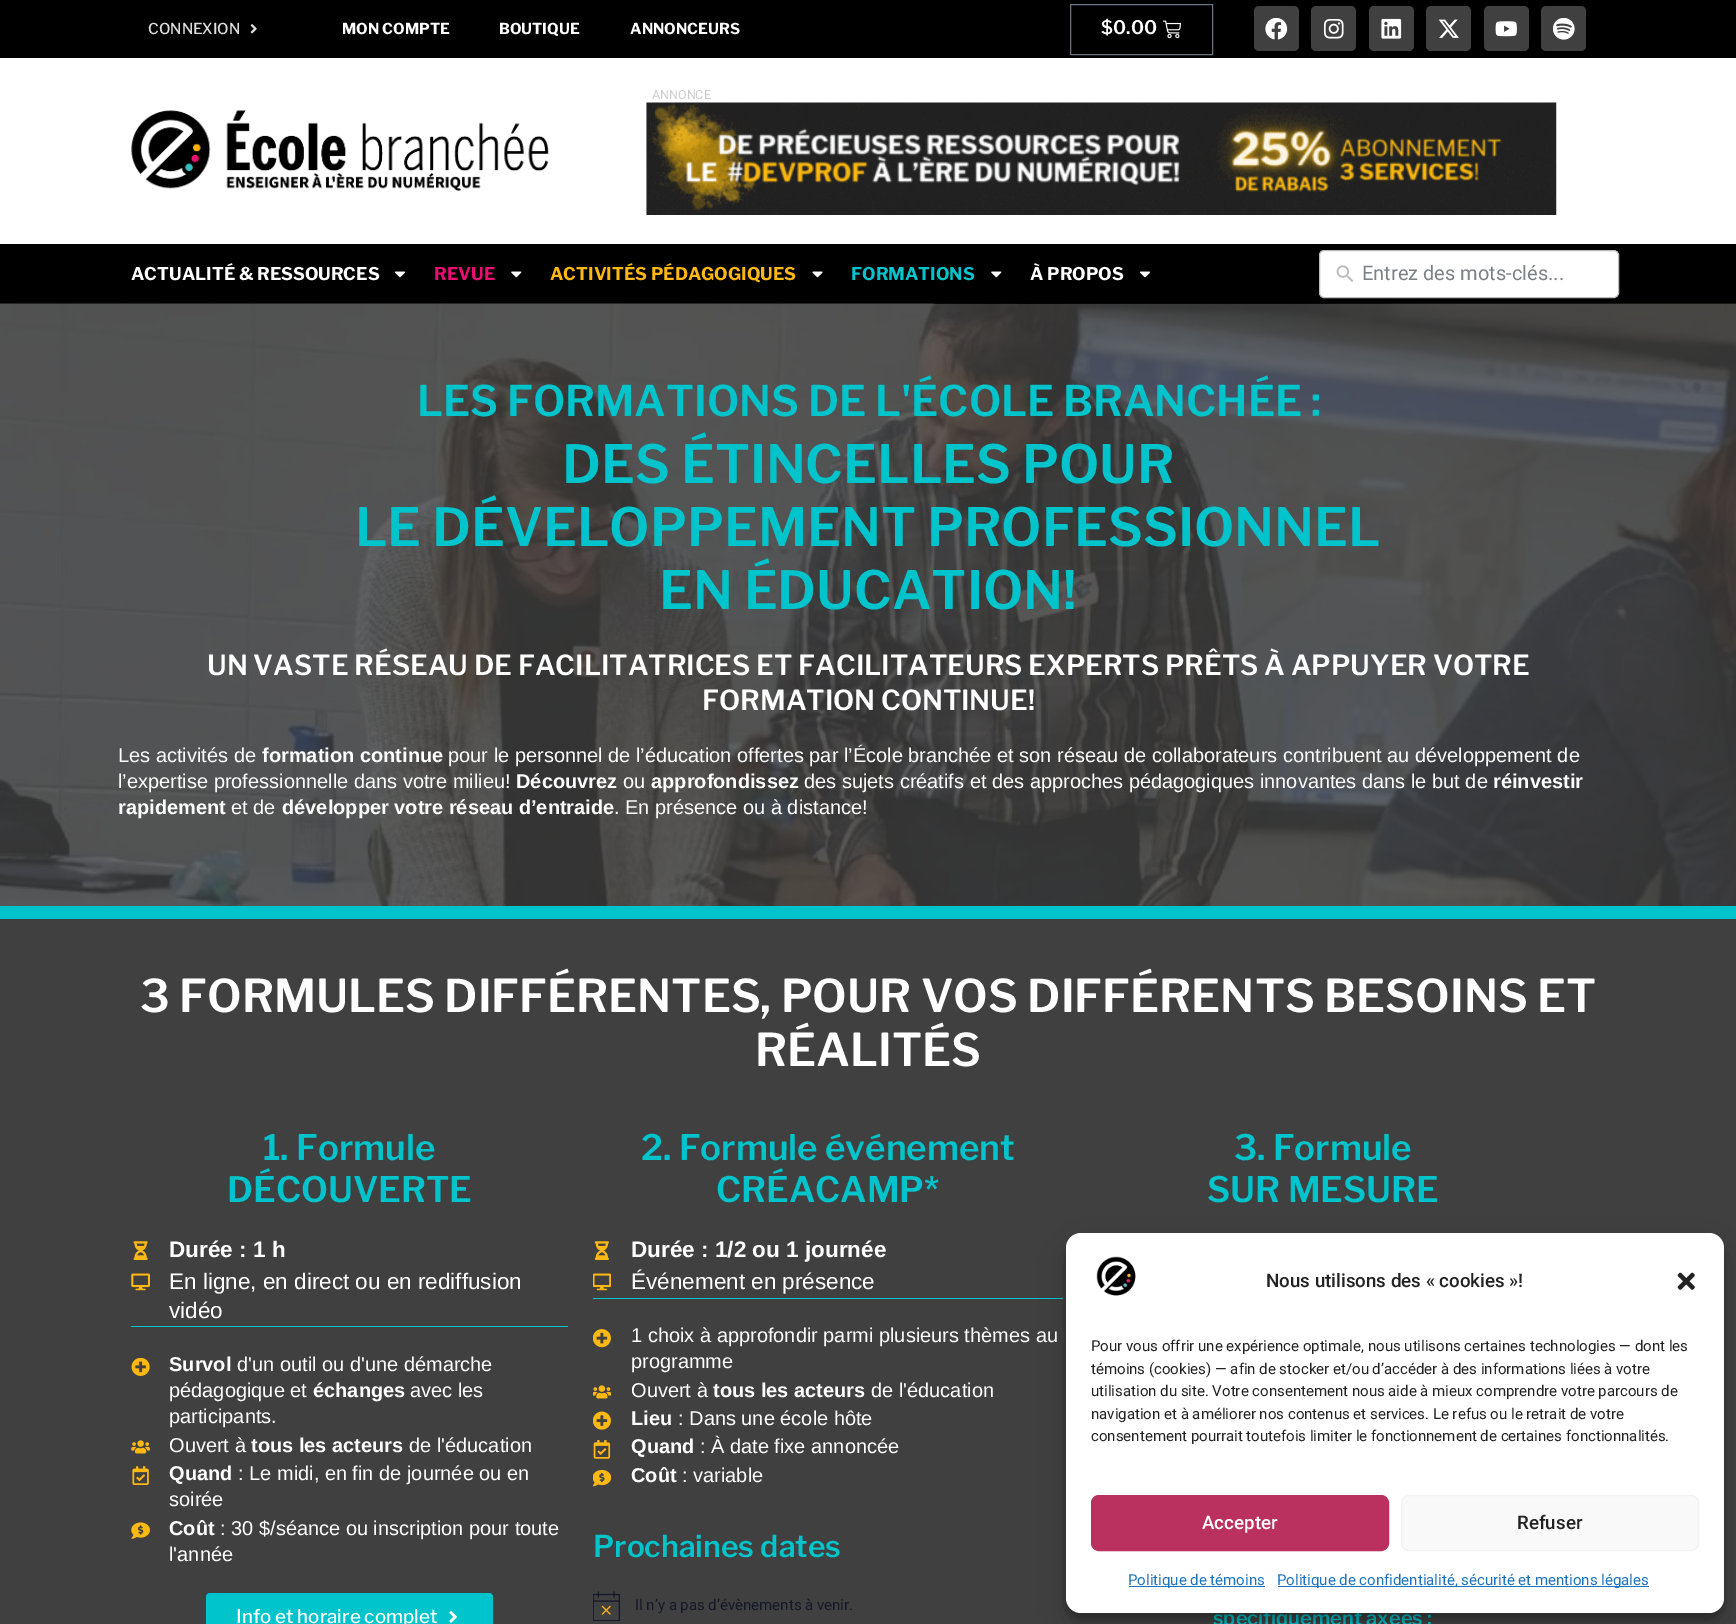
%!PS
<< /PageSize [1736 1624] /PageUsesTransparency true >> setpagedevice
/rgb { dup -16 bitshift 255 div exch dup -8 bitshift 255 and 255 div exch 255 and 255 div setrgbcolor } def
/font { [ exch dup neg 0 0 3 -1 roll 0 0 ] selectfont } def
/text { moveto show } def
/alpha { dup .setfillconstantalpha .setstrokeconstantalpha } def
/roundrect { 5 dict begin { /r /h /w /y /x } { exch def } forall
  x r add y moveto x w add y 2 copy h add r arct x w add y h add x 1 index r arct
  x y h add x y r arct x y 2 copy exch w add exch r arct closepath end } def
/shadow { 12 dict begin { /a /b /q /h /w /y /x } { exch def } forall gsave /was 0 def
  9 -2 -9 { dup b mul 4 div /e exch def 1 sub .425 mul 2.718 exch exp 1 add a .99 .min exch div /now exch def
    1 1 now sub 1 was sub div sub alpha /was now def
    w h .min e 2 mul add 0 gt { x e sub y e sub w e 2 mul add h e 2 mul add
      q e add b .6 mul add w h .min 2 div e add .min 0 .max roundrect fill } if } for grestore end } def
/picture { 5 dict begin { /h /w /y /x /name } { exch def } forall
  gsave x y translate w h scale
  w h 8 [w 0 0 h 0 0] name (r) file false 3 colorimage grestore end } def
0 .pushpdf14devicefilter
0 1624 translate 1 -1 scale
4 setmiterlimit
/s1 { /LibreFranklin-Medium 15 font 16#DDDDDD rgb } def
/s2 { /LibreFranklin-Bold 15 font 16#FFFFFF rgb } def
/s3 { /LibreFranklin-SemiBold 18.75 font 16#FFFFFF rgb } def
/s4 { /Roboto-Regular 12.5 font 16#CDCDCD rgb } def
/s5 { /LibreFranklin-Bold 17.5 font 16#FFFFFF rgb } def
/s6 { /LibreFranklin-Bold 17.5 font 16#EC0D72 rgb } def
/s7 { /LibreFranklin-Bold 17.5 font 16#FDB813 rgb } def
/s8 { /LibreFranklin-Bold 17.5 font 16#00C4CC rgb } def
/s9 { /Roboto-Regular 20 font 16#7C8186 rgb } def
/s10 { /LibreFranklin-SemiBold 42 font 16#00C4CC rgb } def
/s11 { /LibreFranklin-SemiBold 52.5 font 16#00C4CC rgb } def
/s12 { /LibreFranklin-SemiBold 27.5 font 16#FFFFFF rgb } def
/s13 { /LiberationSans-Regular 20 font 16#FFFFFF rgb } def
/s14 { /LiberationSans-Bold 20 font 16#FFFFFF rgb } def
/s15 { /LibreFranklin-SemiBold 45 font 16#FFFFFF rgb } def
/s16 { /LibreFranklin-SemiBold 35 font 16#00C4CC rgb } def
/s17 { /LiberationSans-Bold 22.5 font 16#FFFFFF rgb } def
/s18 { /LiberationSans-Regular 22.5 font 16#FFFFFF rgb } def
/s19 { /LibreFranklin-Medium 18.75 font 16#FFFFFF rgb } def
/s20 { /LibreFranklin-SemiBold 30 font 16#00C4CC rgb } def
/s21 { /Roboto-Regular 15 font 16#141827 rgb } def
/s22 { /LibreFranklin-SemiBold 20 font 16#00C4CC rgb } def
/s23 { /Roboto-Medium 18.75 font 16#222222 rgb } def
/s24 { /Roboto-Regular 15 font 16#222222 rgb } def
/s25 { /Roboto-Medium 18.75 font 16#FFFFFF rgb } def
/s26 { /Roboto-Regular 15 font 16#1E73BE rgb } def
16#FFFFFF rgb
0 0 1736 1624 rectfill
16#000000 rgb
0 0 1736 58 rectfill
s1
(CONNEXION) 148 34 text
(pic1.raw) 250 24 7 10 picture
s2
(MON COMPTE) 342 34 text
(BOUTIQUE) 499 34 text
(ANNONCEURS) 630 34 text
16#69727D rgb
1070.5 4.5 142 50 rectstroke
s3
($0.00) 1101 34 text
(pic2.raw) 1163 20 18 19 picture
16#404040 rgb
1254 6 45 45 5 roundrect fill
(pic3.raw) 1265 18 23 22 picture
1311 6 45 45 5 roundrect fill
(pic4.raw) 1323 19 21 20 picture
1369 6 45 45 5 roundrect fill
(pic5.raw) 1381 18 21 21 picture
1426 6 45 45 5 roundrect fill
(pic6.raw) 1438 19 21 19 picture
1484 6 45 45 5 roundrect fill
(pic7.raw) 1495 21 22 16 picture
1541 6 45 45 5 roundrect fill
(pic8.raw) 1553 18 22 22 picture
s4
(ANNONCE) 652 99 text
(pic9.raw) 646 102 911 113 picture
(pic10.raw) 131 110 418 82 picture
16#000000 rgb
0 244 1736 60 rectfill
s5
(ACTUALITÉ & RESSOURCES) 131 280 text
(pic11.raw) 394 271 11 7 picture
s6
(REVUE) 434 280 text
(pic12.raw) 511 271 11 7 picture
s7
(ACTIVITÉS PÉDAGOGIQUES) 550 280 text
(pic13.raw) 812 271 11 7 picture
s8
(FORMATIONS) 851 280 text
(pic12.raw) 991 271 11 7 picture
s5
(À PROPOS) 1030 280 text
(pic11.raw) 1139 271 11 7 picture
1319.5 250.5 299 47 4.5 roundrect gsave fill grestore
16#BBBBBB rgb
stroke
(pic14.raw) 1336 265 18 17 picture
s9
(Entrez des mots-clés...) 1362 280 text
(pic15.raw) 0 303 1736 603 picture
16#00C4CC rgb
0 906 1736 13 rectfill
s10
(LES FORMATIONS DE L'ÉCOLE BRANCHÉE :) 417 416 text
s11
(DES ÉTINCELLES POUR) 562 483 text
(LE DÉVELOPPEMENT PROFESSIONNEL) 355 546 text
(EN ÉDUCATION!) 659 609 text
s12
(UN VASTE RÉSEAU DE FACILITATRICES ET FACILITATEURS EXPERTS PRÊTS À APPUYER VOTRE) 207 675 text
(FORMATION CONTINUE!) 702 710 text
s13
(Les activités de) 118 762 text
s14
(formation continue) 262 762 text
s13
(pour le personnel de l’éducation offertes par l’École branchée et son réseau de collaborateurs contribuent au développement de) 448 762 text
(l’expertise professionnelle dans votre milieu!) 118 788 text
s14
(Découvrez) 516 788 text
s13
(ou) 623 788 text
s14
(approfondissez) 651 788 text
s13
(des sujets créatifs et des approches pédagogiques innovantes dans le but de) 804 788 text
s14
(réinvestir) 1493 788 text
(rapidement) 118 814 text
s13
(et de) 231 814 text
s14
(développer votre réseau d’entraide) 282 814 text
s13
(. En présence ou à distance!) 614 814 text
16#404040 rgb
0 919 1736 705 rectfill
s15
(3 FORMULES DIFFÉRENTES, POUR VOS DIFFÉRENTS BESOINS ET) 140 1012 text
(RÉALITÉS) 755 1066 text
s16
(1. Formule) 263 1160 text
(DÉCOUVERTE) 227 1202 text
131 1326 437 1 rectfill
(pic16.raw) 133 1241 15 19 picture
s17
(Durée : 1 h) 169 1257 text
(pic17.raw) 131 1273 19 18 picture
s18
(En ligne, en direct ou en rediffusion) 169 1289 text
(vidéo) 169 1318 text
(pic18.raw) 131 1358 19 18 picture
s14
(Survol) 169 1371 text
s13
(d'un outil ou d'une démarche) 237 1371 text
(pédagogique et) 169 1397 text
s14
(échanges) 313 1397 text
s13
(avec les) 410 1397 text
(participants.) 169 1423 text
(pic19.raw) 131 1440 19 14 picture
(Ouvert à) 169 1452 text
s14
(tous les acteurs) 251 1452 text
s13
(de l'éducation) 409 1452 text
(pic20.raw) 132 1466 17 19 picture
s14
(Quand) 169 1480 text
s13
(: Le midi, en fin de journée ou en) 238 1480 text
(soirée) 169 1506 text
(pic21.raw) 131 1522 19 17 picture
s14
(Coût) 169 1535 text
s13
(: 30 $/séance ou inscription pour toute) 220 1535 text
(l'année) 169 1561 text
16#00C4CC rgb
206 1593 287 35 4 roundrect fill
s19
(Info et horaire complet) 236 1623 text
(pic22.raw) 449 1611 8 12 picture
s16
(2. Formule événement) 641 1160 text
(CRÉACAMP*) 716 1202 text
593 1298 470 1 rectfill
(pic23.raw) 594 1241 15 19 picture
s17
(Durée : 1/2 ou 1 journée) 631 1257 text
(pic24.raw) 593 1273 18 18 picture
s18
(Événement en présence) 631 1289 text
(pic25.raw) 593 1329 18 19 picture
s13
(1 choix à approfondir parmi plusieurs thèmes au) 631 1342 text
(programme) 631 1368 text
(pic26.raw) 593 1385 18 14 picture
(Ouvert à) 631 1397 text
s14
(tous les acteurs) 713 1397 text
s13
(de l'éducation) 871 1397 text
(pic27.raw) 593 1411 18 19 picture
s14
(Lieu) 631 1425 text
s13
(: Dans une école hôte) 678 1425 text
(pic28.raw) 593 1440 18 19 picture
s14
(Quand) 631 1453 text
s13
(: À date fixe annoncée) 700 1453 text
(pic29.raw) 593 1469 18 18 picture
s14
(Coût) 631 1482 text
s13
(: variable) 682 1482 text
s20
(Prochaines dates) 593 1557 text
(pic30.raw) 593 1591 27 30 picture
s21
(Il n’y a pas d’évènements à venir.) 635 1610 text
s16
(3. Formule) 1234 1160 text
(SUR MESURE) 1207 1202 text
s22
(spécifiquement axées :) 1213 1625 text
16#000000 rgb
1066 1240 658 380 15 4 0.23 shadow
1066 1245 658 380 15 12.5 0.19 shadow
16#FFFFFF rgb
1066 1233 658 380 15 roundrect fill
(pic31.raw) 1096 1256 40 40 picture
s23
(Nous utilisons des « cookies »!) 1266 1287 text
(pic32.raw) 1677 1272 18 18 picture
s24
(Pour vous offrir une expérience optimale, nous utilisons certaines technologies — dont les) 1091 1351 text
(témoins \(cookies\) — afin de stocker et/ou d’accéder à des informations liées à votre) 1091 1374 text
(utilisation du site. Votre consentement nous aide à mieux comprendre votre parcours de) 1091 1396 text
(navigation et à améliorer nos contenus et services. Le refus ou le retrait de votre) 1091 1419 text
(consentement pourrait toutefois limiter le fonctionnement de certaines fonctionnalités.) 1091 1441 text
16#BA305E rgb
1091.5 1495.5 297 55 7.5 roundrect gsave fill grestore
stroke
s25
(Accepter) 1202 1529 text
16#F9F9F9 rgb
1401.5 1495.5 297 55 7.5 roundrect gsave fill grestore
16#F2F2F2 rgb
stroke
s23
(Refuser) 1517 1529 text
16#1E73BE rgb
1129 1586 136 1 rectfill
s26
(Politique de témoins) 1128 1585 text
1278 1586 371 1 rectfill
(Politique de confidentialité, sécurité et mentions légales) 1277 1585 text
.poppdf14devicefilter showpage
